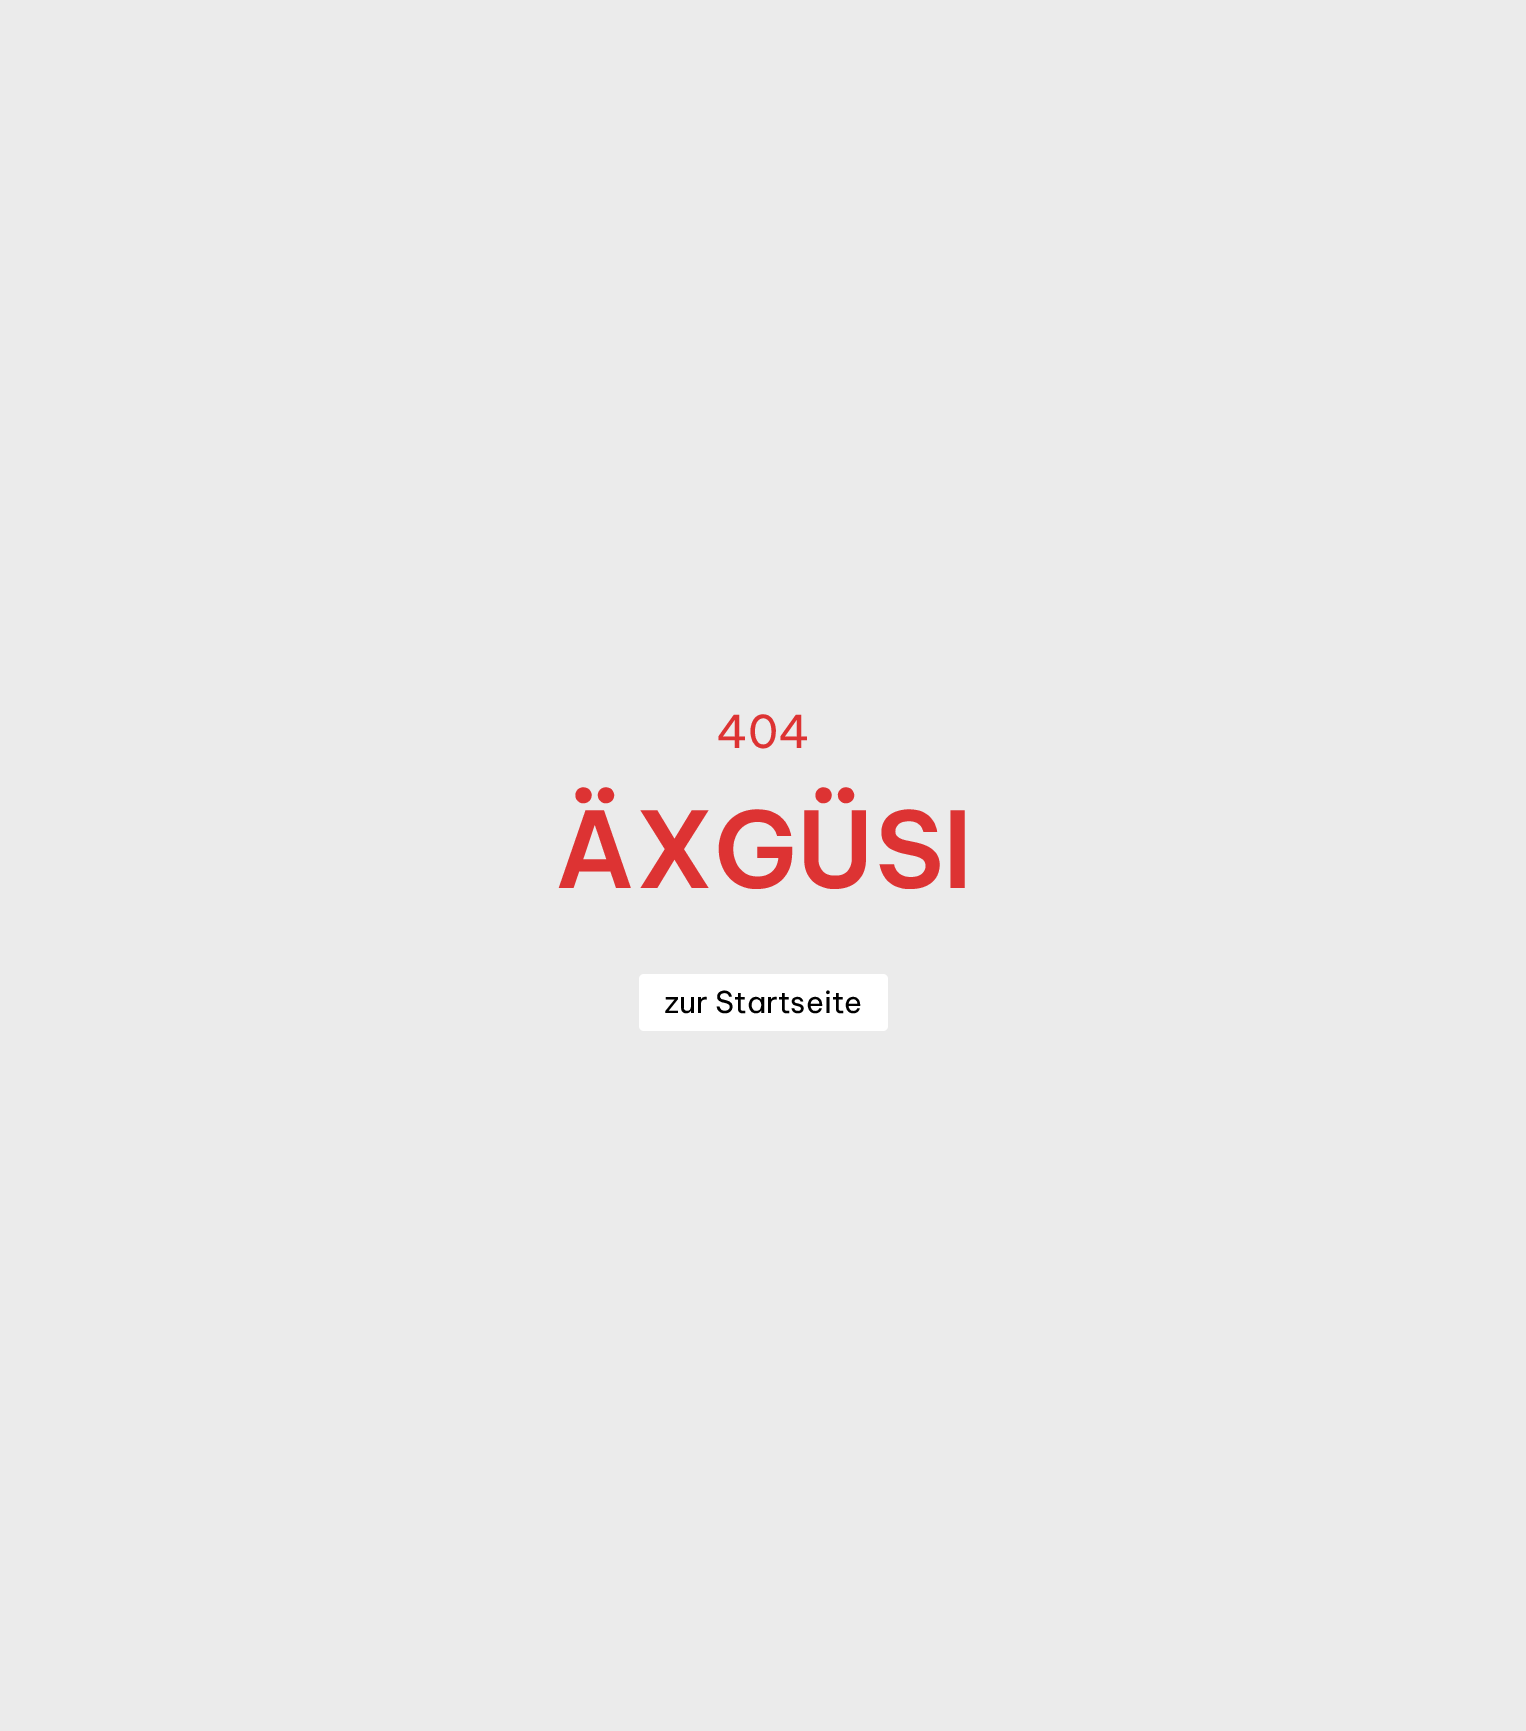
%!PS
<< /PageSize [1526 1731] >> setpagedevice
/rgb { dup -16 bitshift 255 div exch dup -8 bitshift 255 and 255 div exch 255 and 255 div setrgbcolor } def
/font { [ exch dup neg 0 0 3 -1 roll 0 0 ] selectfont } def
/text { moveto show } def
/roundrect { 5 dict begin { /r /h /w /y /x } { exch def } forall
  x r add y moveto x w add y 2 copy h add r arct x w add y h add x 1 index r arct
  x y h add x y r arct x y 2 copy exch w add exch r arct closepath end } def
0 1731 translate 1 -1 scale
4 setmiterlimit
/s1 { /BeVietnamPro-Regular 45 font 16#DD3333 rgb } def
/s2 { /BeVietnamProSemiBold-SemiBold 105 font 16#DD3333 rgb } def
/s3 { /BeVietnamPro-Regular 30 font 16#000000 rgb } def
16#EBEBEB rgb
0 0 1526 1731 rectfill
s1
(404) 716 748 text
s2
(ÄXGÜSI) 555 888 text
16#FFFFFF rgb
639 974 249 57 5 roundrect fill
s3
(zur Startseite) 664 1013 text
showpage
